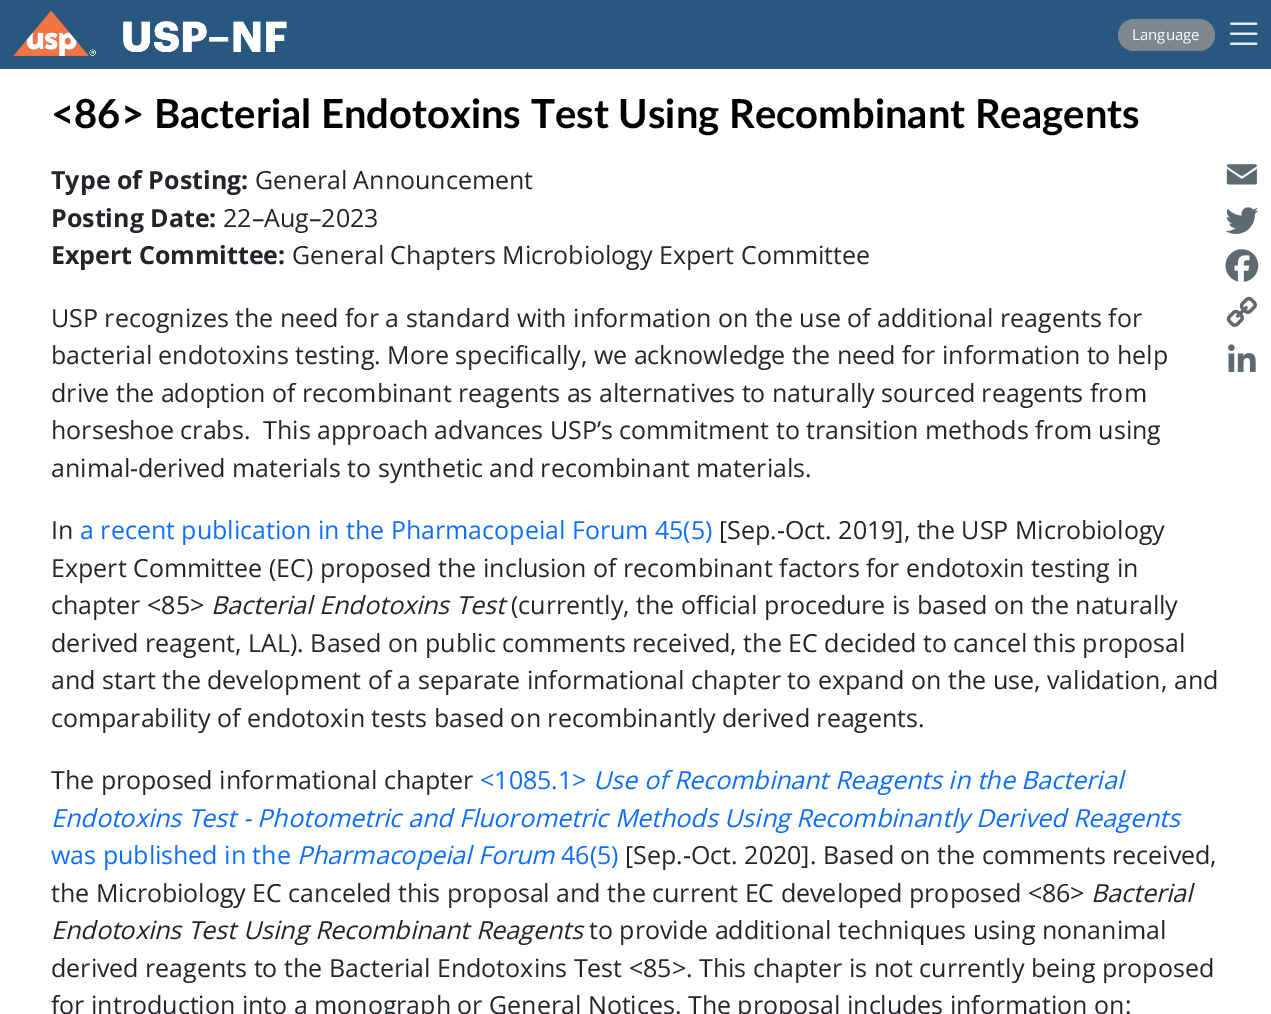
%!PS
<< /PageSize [1271 1014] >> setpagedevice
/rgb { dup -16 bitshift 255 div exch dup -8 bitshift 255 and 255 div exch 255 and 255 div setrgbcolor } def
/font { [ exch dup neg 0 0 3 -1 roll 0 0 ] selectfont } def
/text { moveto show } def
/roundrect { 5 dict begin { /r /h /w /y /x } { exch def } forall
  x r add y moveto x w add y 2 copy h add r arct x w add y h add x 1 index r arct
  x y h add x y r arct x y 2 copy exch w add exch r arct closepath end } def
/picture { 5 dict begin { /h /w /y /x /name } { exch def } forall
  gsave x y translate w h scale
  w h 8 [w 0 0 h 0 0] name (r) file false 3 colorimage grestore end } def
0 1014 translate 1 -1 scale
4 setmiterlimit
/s1 { /OpenSans-Regular 15 font 16#FFFFFF rgb } def
/s2 { /Lato-Bold 40 font 16#000000 rgb } def
/s3 { /OpenSans-Bold 25 font 16#212529 rgb } def
/s4 { /OpenSans-Regular 25 font 16#212529 rgb } def
/s5 { /OpenSans-Regular 25 font 16#0D6EFD rgb } def
/s6 { /OpenSans-Italic 25 font 16#212529 rgb } def
/s7 { /OpenSans-Italic 25 font 16#0D6EFD rgb } def
16#FFFFFF rgb
0 0 1271 1014 rectfill
16#285780 rgb
0 0 1271 69 rectfill
(pic1.raw) 1230 22 28 23 picture
(pic2.raw) 13 10 274 46 picture
16#7C878E rgb
1118 19 97 32 16 roundrect fill
s1
(Language) 1132 40 text
s2
(<86> Bacterial Endotoxins Test Using Recombinant Reagents) 51 128 text
s3
(Type of Posting:) 51 189 text
s4
(General Announcement) 255 189 text
s3
(Posting Date:) 51 227 text
s4
(22–Aug–2023) 223 227 text
s3
(Expert Committee:) 51 264 text
s4
(General Chapters Microbiology Expert Committee) 292 264 text
(USP recognizes the need for a standard with information on the use of additional reagents for) 51 327 text
(bacterial endotoxins testing. More specifically, we acknowledge the need for information to help) 51 364 text
(drive the adoption of recombinant reagents as alternatives to naturally sourced reagents from) 51 402 text
(horseshoe crabs.  This approach advances USP’s commitment to transition methods from using) 51 439 text
(animal-derived materials to synthetic and recombinant materials.) 51 477 text
(In) 51 539 text
s5
(a recent publication in the Pharmacopeial Forum 45\(5\)) 80 539 text
s4
([Sep.-Oct. 2019], the USP Microbiology) 719 539 text
(Expert Committee \(EC\) proposed the inclusion of recombinant factors for endotoxin testing in) 51 577 text
(chapter <85>) 51 614 text
s6
(Bacterial Endotoxins Test) 211 614 text
s4
(\(currently, the official procedure is based on the naturally) 511 614 text
(derived reagent, LAL\). Based on public comments received, the EC decided to cancel this proposal) 51 652 text
(and start the development of a separate informational chapter to expand on the use, validation, and) 51 689 text
(comparability of endotoxin tests based on recombinantly derived reagents.) 51 727 text
(The proposed informational chapter) 51 789 text
s5
(<1085.1>) 480 789 text
s7
(Use of Recombinant Reagents in the Bacterial) 593 789 text
(Endotoxins Test - Photometric and Fluorometric Methods Using Recombinantly Derived Reagents) 51 827 text
s5
(was published in the) 51 864 text
s7
(Pharmacopeial Forum) 297 864 text
s5
(46\(5\)) 561 864 text
s4
([Sep.-Oct. 2020]. Based on the comments received,) 625 864 text
(the Microbiology EC canceled this proposal and the current EC developed proposed <86>) 51 902 text
s6
(Bacterial) 1091 902 text
(Endotoxins Test Using Recombinant Reagents) 51 939 text
s4
(to provide additional techniques using nonanimal) 589 939 text
(derived reagents to the Bacterial Endotoxins Test <85>. This chapter is not currently being proposed) 51 977 text
(for introduction into a monograph or General Notices. The proposal includes information on:) 51 1014 text
(pic3.raw) 1226 164 31 21 picture
(pic4.raw) 1225 207 34 27 picture
(pic5.raw) 1225 249 34 33 picture
(pic6.raw) 1226 296 31 31 picture
(pic7.raw) 1228 344 28 28 picture
showpage
